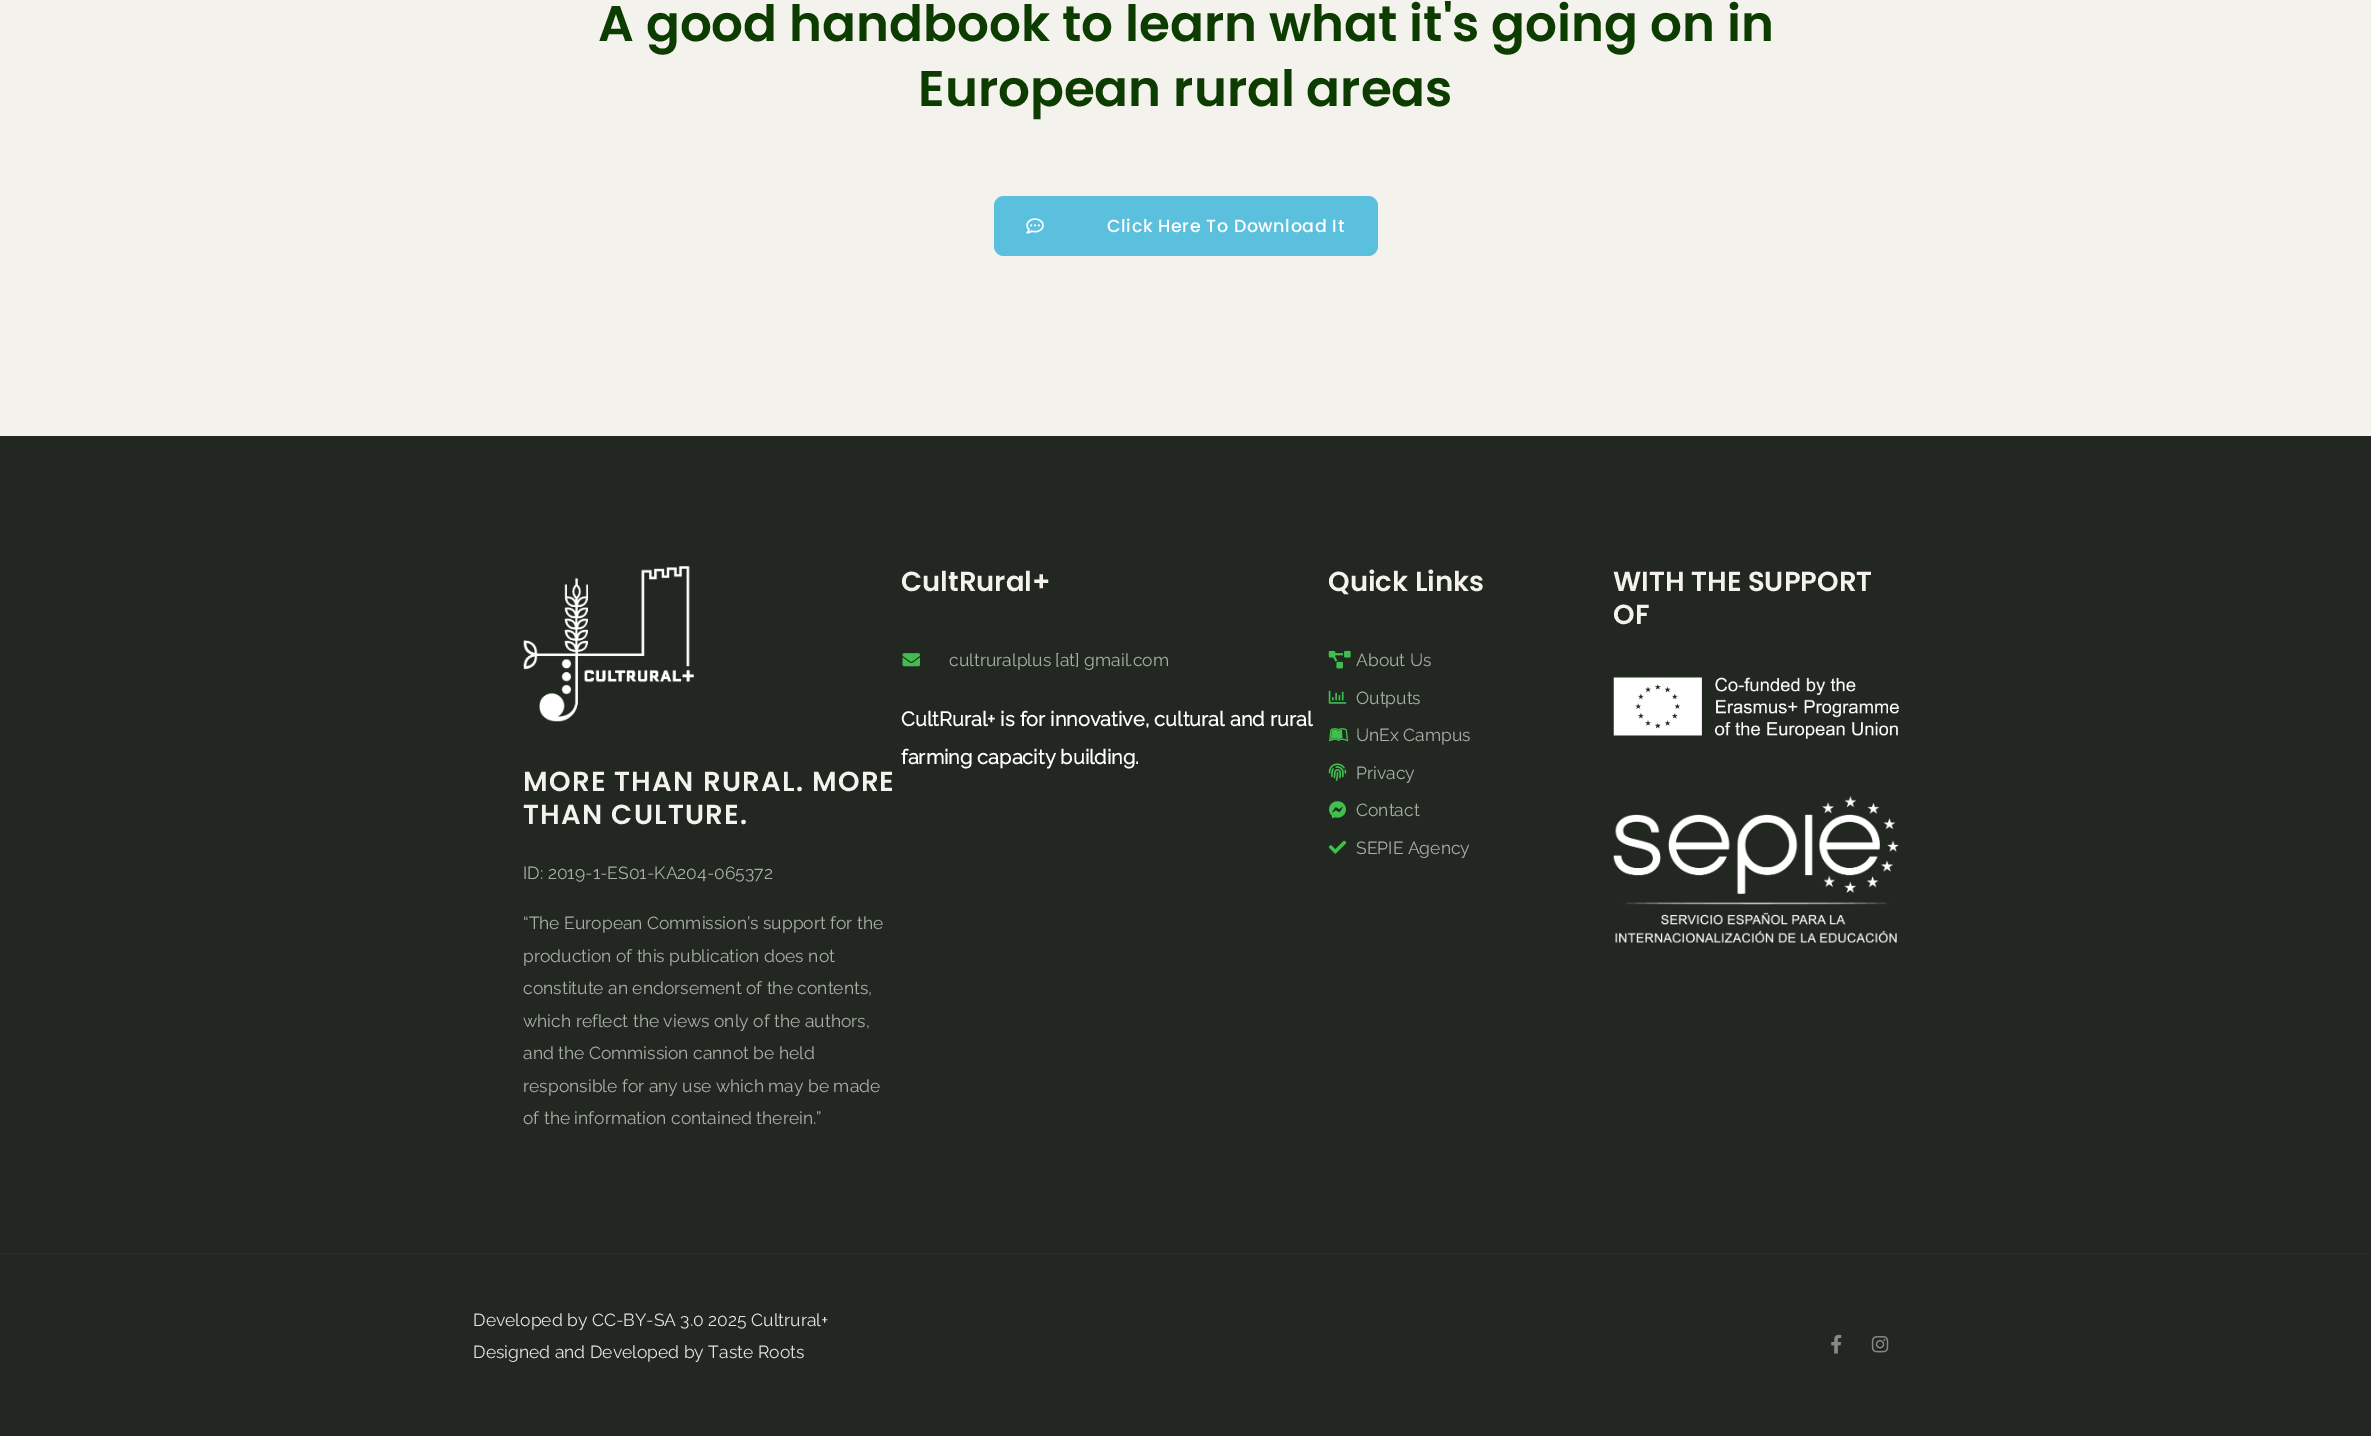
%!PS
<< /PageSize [2371 1436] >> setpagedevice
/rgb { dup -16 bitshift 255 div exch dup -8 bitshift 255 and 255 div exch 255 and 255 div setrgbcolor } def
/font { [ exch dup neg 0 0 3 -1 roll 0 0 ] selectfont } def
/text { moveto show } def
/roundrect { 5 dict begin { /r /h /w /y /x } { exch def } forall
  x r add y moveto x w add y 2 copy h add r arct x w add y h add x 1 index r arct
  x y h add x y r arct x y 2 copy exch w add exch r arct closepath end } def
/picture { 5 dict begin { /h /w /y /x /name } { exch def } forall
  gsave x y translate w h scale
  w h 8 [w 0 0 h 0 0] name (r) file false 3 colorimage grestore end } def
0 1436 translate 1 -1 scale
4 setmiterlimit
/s1 { /Poppins-SemiBold 50 font 16#0D3C00 rgb } def
/s2 { /Poppins-SemiBold 27.5 font 16#F3F2ED rgb } def
/s3 { /Raleway-Thin 17.5 font 16#A8B0A6 rgb } def
/s4 { /Raleway-Bold 20 font 16#FFFFFF rgb } def
/s5 { /Raleway-Thin 17.5 font 16#E9E2E2 rgb } def
16#F3F2ED rgb
0 0 2371 1436 rectfill
s1
(A good handbook to learn what it's going on in) 598 41 text
(European rural areas) 918 106 text
16#5BC0DE rgb
994 196 384 60 10 roundrect fill
(pic1.raw) 1026 218 18 16 picture
/Poppins-Medium 17.5 font
16#FFFFFF rgb
1107 232 moveto 0.6 0 (Click Here To Download It) ashow
16#222821 rgb
0 436 2371 817 rectfill
s2
(CultRural+) 901 591 text
(pic2.raw) 902 653 18 14 picture
s3
(cultruralplus [at] gmail.com) 949 666 text
s4
(CultRural+ is for innovative, cultural and rural) 901 726 text
(farming capacity building.) 901 764 text
s2
(Quick Links) 1328 591 text
(pic3.raw) 1328 650 23 19 picture
s3
(About Us) 1356 666 text
(pic4.raw) 1328 690 19 14 picture
(Outputs) 1356 704 text
(pic5.raw) 1329 728 20 14 picture
(UnEx Campus) 1356 741 text
(pic6.raw) 1328 763 19 18 picture
(Privacy) 1356 779 text
(pic7.raw) 1329 801 17 18 picture
(Contact) 1356 816 text
(pic8.raw) 1328 840 19 14 picture
(SEPIE Agency) 1356 854 text
s2
(WITH THE SUPPORT) 1613 591 text
(OF) 1613 624 text
(pic9.raw) 1613 677 286 62 picture
(pic10.raw) 1613 796 286 147 picture
(pic11.raw) 523 566 171 156 picture
523 791 moveto 1.25 0 (MORE THAN RURAL. MORE) ashow
523 824 moveto 1.25 0 (THAN CULTURE.) ashow
s3
(ID: 2019-1-ES01-KA204-065372) 523 879 text
(“The European Commission’s support for the) 523 929 text
(production of this publication does not) 523 962 text
(constitute an endorsement of the contents,) 523 994 text
(which reflect the views only of the authors,) 523 1027 text
(and the Commission cannot be held) 523 1059 text
(responsible for any use which may be made) 523 1092 text
(of the information contained therein.”) 523 1124 text
16#222821 rgb
0 1254 2371 182 rectfill
16#2B312A rgb
0 1253 2371 1 rectfill
s5
(Developed by CC-BY-SA 3.0 2025 Cultrural+) 473 1326 text
(Designed and Developed by Taste Roots) 473 1358 text
(pic12.raw) 1831 1334 11 20 picture
(pic13.raw) 1871 1336 18 17 picture
showpage
